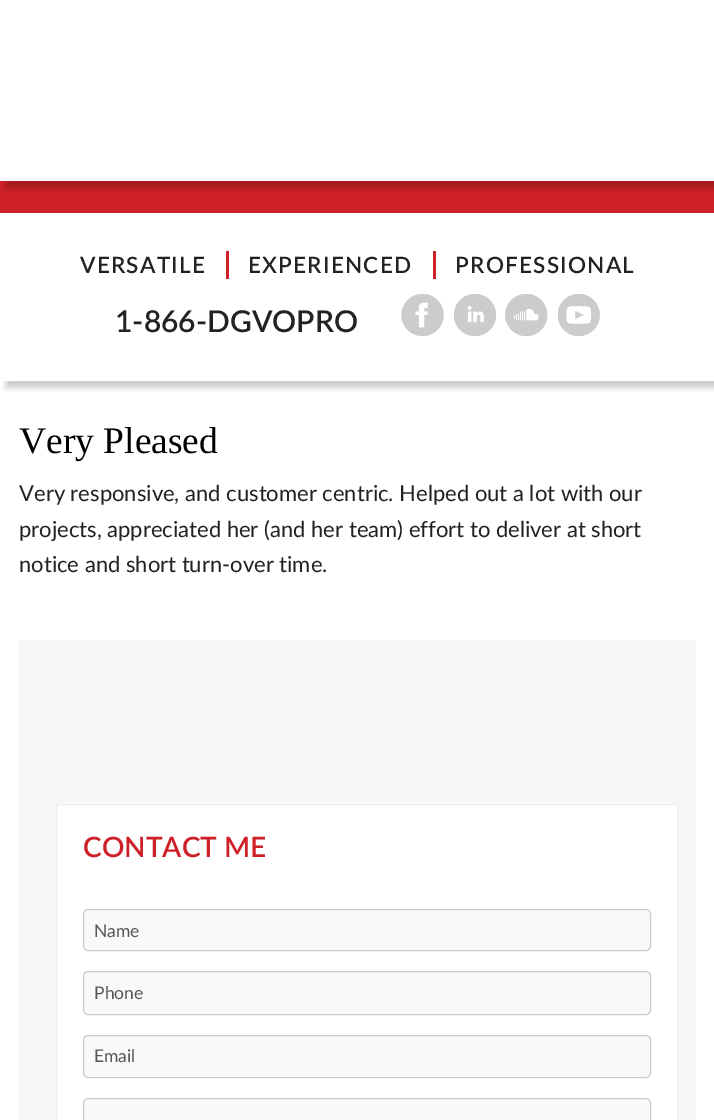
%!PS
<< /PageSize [714 1120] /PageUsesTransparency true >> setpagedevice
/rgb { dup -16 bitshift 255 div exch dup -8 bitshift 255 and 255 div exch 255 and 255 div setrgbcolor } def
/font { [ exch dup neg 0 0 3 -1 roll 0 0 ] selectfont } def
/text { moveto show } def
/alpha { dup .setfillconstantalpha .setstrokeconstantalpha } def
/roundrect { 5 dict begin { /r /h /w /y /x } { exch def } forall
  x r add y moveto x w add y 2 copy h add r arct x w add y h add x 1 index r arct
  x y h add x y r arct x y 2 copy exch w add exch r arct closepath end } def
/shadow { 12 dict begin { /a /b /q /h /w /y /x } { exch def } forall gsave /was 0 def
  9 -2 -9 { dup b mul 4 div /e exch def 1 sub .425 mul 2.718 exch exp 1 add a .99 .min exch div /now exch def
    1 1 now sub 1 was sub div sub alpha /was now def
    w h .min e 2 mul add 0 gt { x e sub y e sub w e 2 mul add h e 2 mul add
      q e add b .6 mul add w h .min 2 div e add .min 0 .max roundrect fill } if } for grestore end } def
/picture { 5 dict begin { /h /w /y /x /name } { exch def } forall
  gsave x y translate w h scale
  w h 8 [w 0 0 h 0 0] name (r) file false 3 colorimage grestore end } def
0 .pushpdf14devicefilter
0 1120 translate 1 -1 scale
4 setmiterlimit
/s1 { /Lato-SemiBold 30 font 16#222222 rgb } def
/s2 { /LiberationSerif-Regular 37.5 font 16#000000 rgb } def
/s3 { /Lato-Regular 22 font 16#222222 rgb } def
/s4 { /Lato-SemiBold 28 font 16#CD2027 rgb } def
/s5 { /Lato-Regular 17.5 font 16#555555 rgb } def
16#FFFFFF rgb
0 0 714 1120 rectfill
gsave
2 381 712 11 rectclip
16#000000 rgb
6 188 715 200 0 3 0.2 shadow
grestore
16#CD2027 rgb
0 181 714 32 rectfill
gsave
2 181 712 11 rectclip
16#000000 rgb
6 6 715 182 0 3 0.2 shadow
grestore
226 251 3 28 rectfill
/Lato-SemiBold 22.5 font
16#222222 rgb
80 273 moveto 1.25 0 (VERSATILE) ashow
16#CD2027 rgb
433 251 3 28 rectfill
16#222222 rgb
248 273 moveto 1.25 0 (EXPERIENCED) ashow
455 273 moveto 1.25 0 (PROFESSIONAL) ashow
s1
(1-866-DGVOPRO) 115 332 text
(pic1.raw) 401 294 43 42 picture
(pic2.raw) 454 294 42 42 picture
(pic3.raw) 505 294 43 42 picture
(pic4.raw) 558 294 42 42 picture
s2
(Very Pleased) 19 453 text
s3
(Very responsive, and customer centric. Helped out a lot with our) 19 501 text
(projects, appreciated her \(and her team\) effort to deliver at short) 19 537 text
(notice and short turn-over time.) 19 572 text
16#F7F7F7 rgb
19 640 677 480 rectfill
16#FFFFFF rgb
56.5 804.5 moveto 677.5 804.5 lineto 677.5 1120.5 lineto 56.5 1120.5 lineto closepath gsave fill grestore
16#EEEEEE rgb
stroke
s4
(CONTACT ME) 83 857 text
16#F8F9FB rgb
83.5 909.5 567 41 4.5 roundrect gsave fill grestore
16#CCCCCC rgb
stroke
s5
(Name) 94 937 text
16#F8F9FB rgb
83.5 971.5 567 43 4.5 roundrect gsave fill grestore
16#CCCCCC rgb
stroke
s5
(Phone) 94 999 text
16#F8F9FB rgb
83.5 1035.5 567 42 4.5 roundrect gsave fill grestore
16#CCCCCC rgb
stroke
s5
(Email) 94 1062 text
16#F8F9FB rgb
83.5 1098.5 567 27 4.5 roundrect gsave fill grestore
16#CCCCCC rgb
stroke
.poppdf14devicefilter showpage
